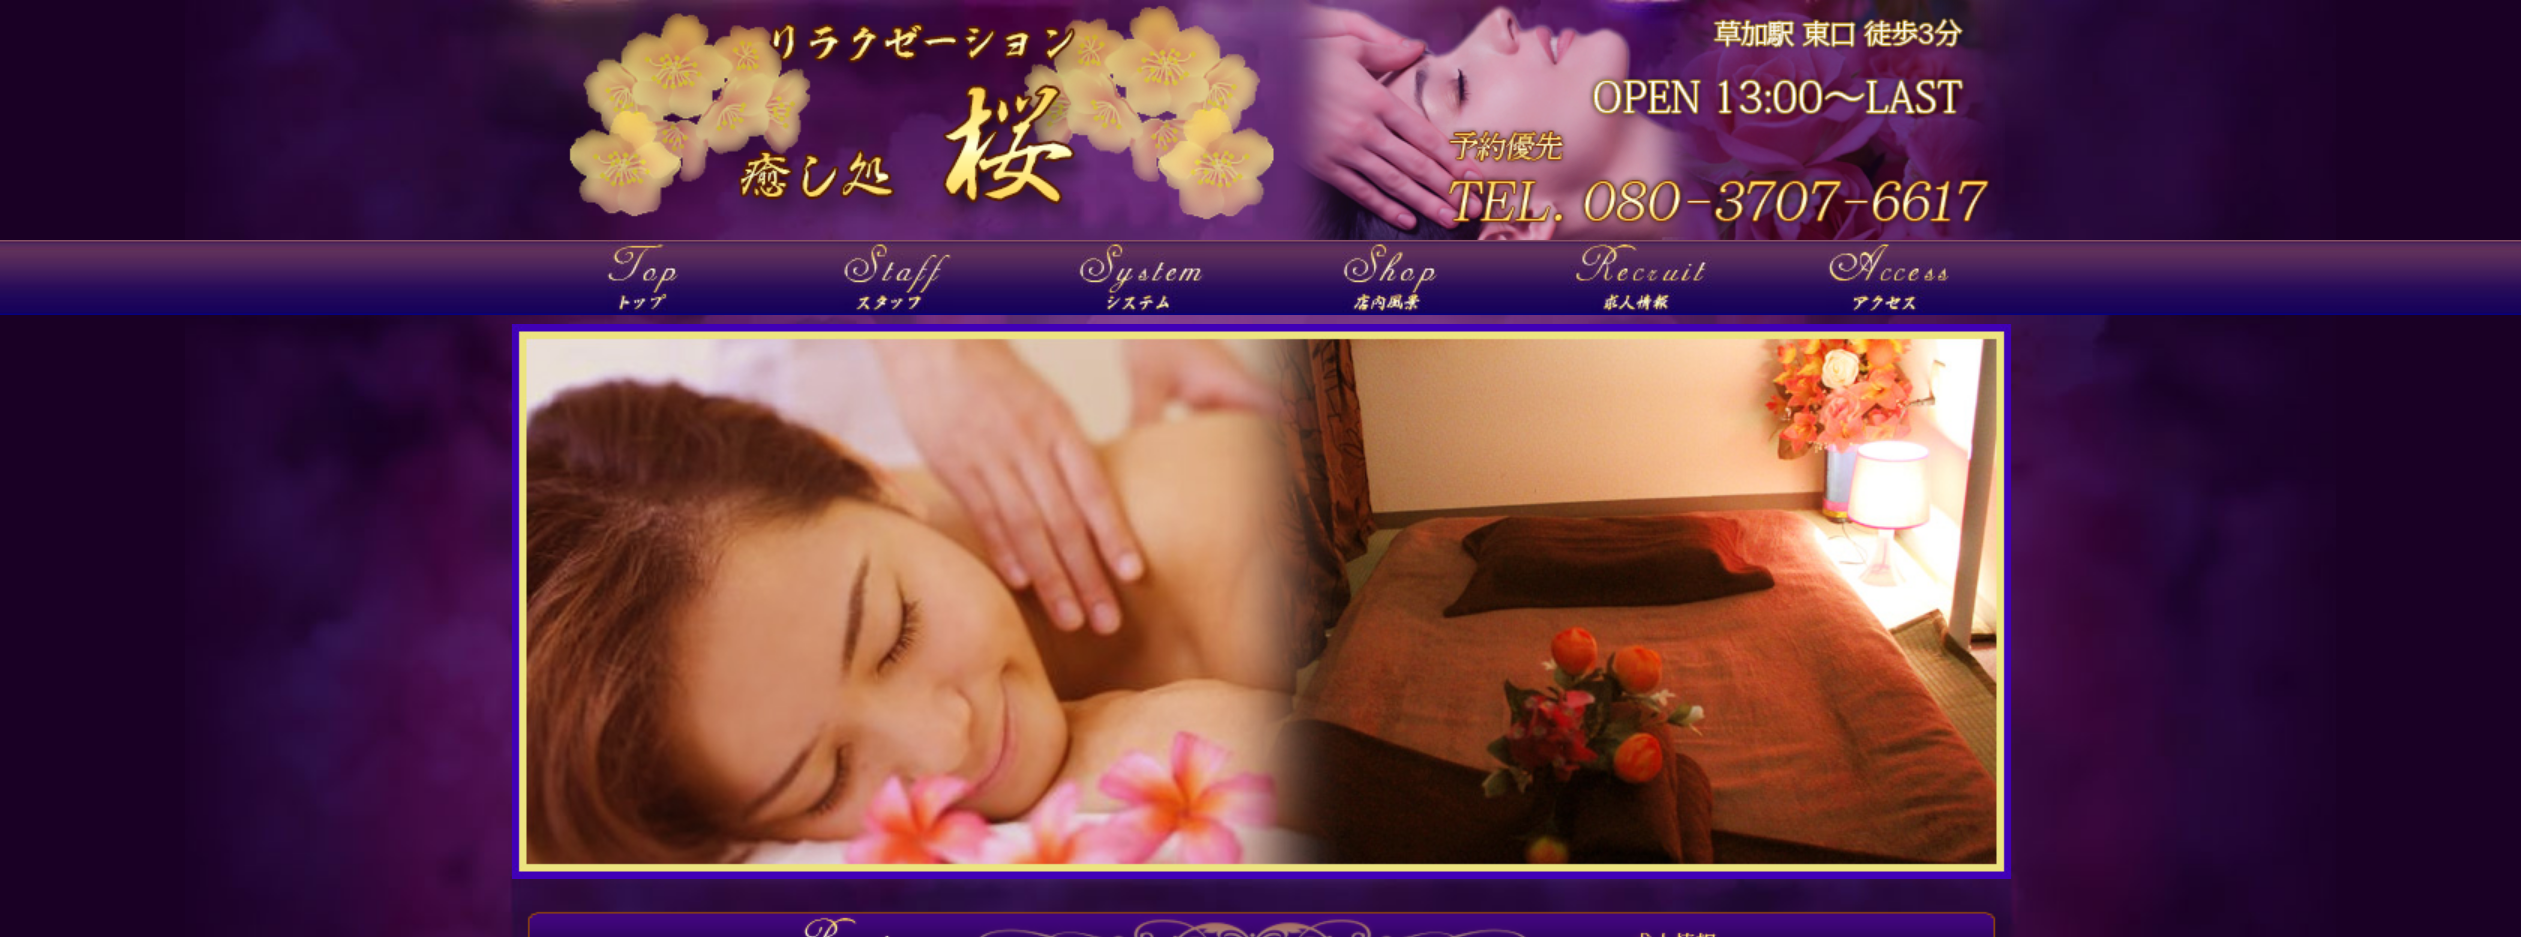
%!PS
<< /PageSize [2521 937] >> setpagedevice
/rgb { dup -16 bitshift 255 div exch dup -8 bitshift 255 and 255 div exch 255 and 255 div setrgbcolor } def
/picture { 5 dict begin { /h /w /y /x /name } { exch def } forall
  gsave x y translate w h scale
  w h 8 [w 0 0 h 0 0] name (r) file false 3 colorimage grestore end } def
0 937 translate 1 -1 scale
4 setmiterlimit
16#1A0025 rgb
0 0 2521 937 rectfill
(pic1.raw) 185 0 2151 937 picture
(pic2.raw) 569 0 1436 240 picture
(pic3.raw) 0 240 2521 75 picture
(pic4.raw) 607 240 73 73 picture
(pic5.raw) 839 240 114 73 picture
(pic6.raw) 1070 240 135 73 picture
(pic7.raw) 1342 240 97 73 picture
(pic8.raw) 1568 240 144 73 picture
(pic9.raw) 1826 240 123 73 picture
(pic10.raw) 511 324 1501 555 picture
(pic11.raw) 527 911 1469 26 picture
showpage
